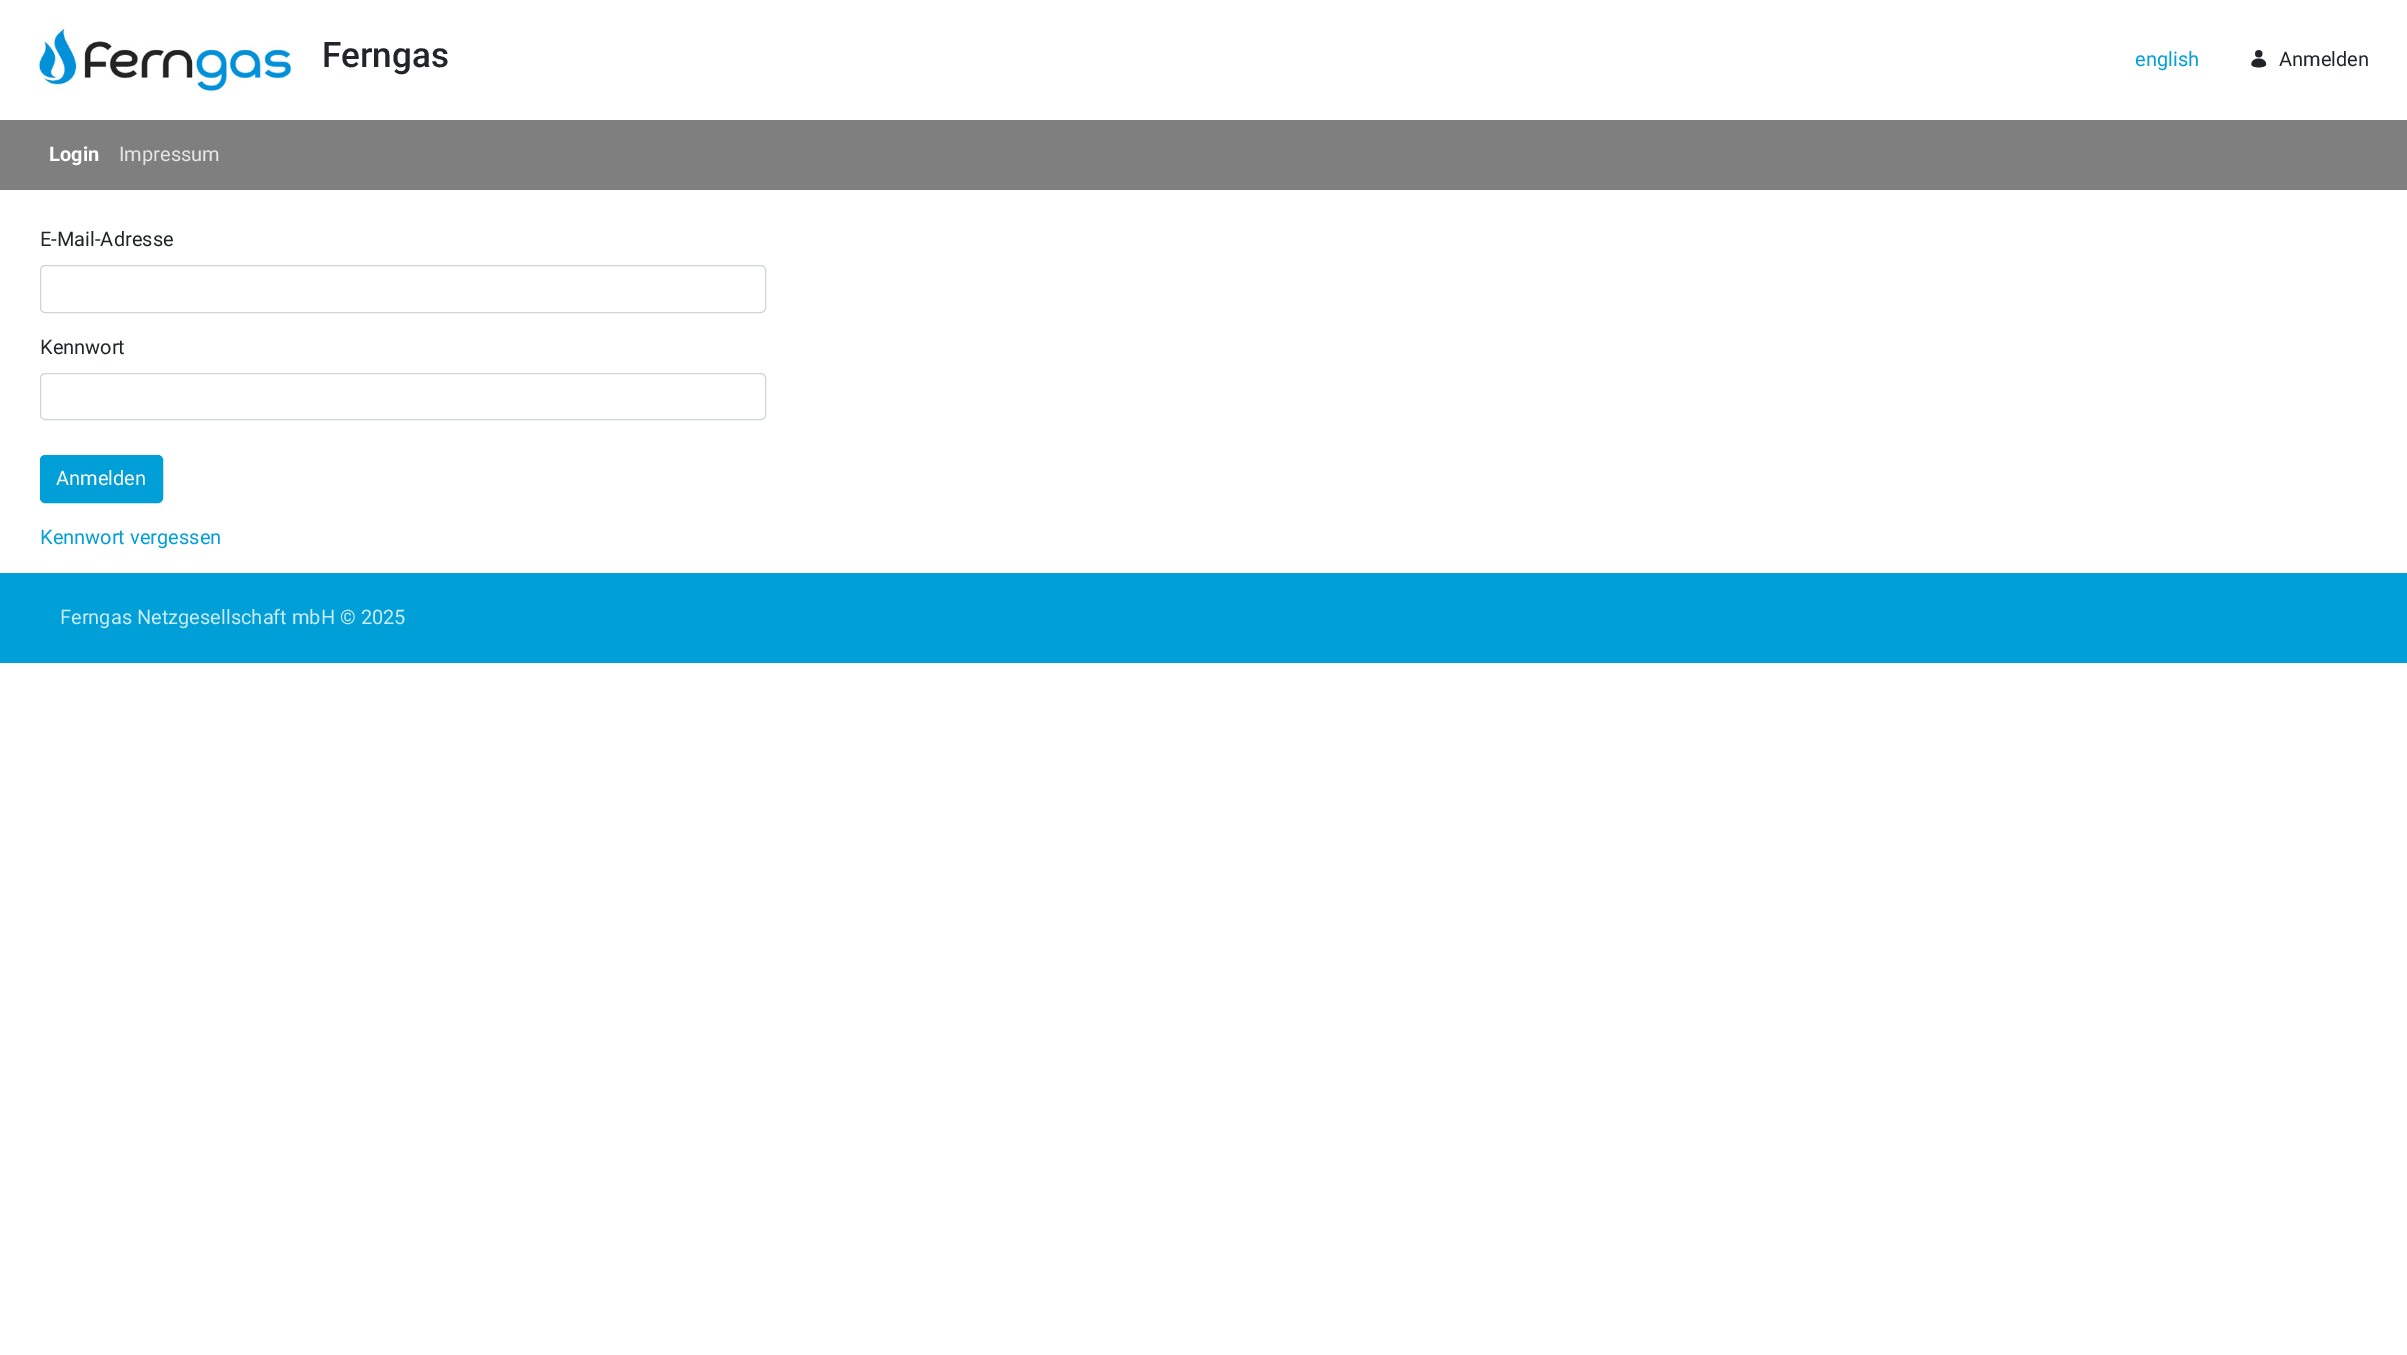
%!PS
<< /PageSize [2407 1355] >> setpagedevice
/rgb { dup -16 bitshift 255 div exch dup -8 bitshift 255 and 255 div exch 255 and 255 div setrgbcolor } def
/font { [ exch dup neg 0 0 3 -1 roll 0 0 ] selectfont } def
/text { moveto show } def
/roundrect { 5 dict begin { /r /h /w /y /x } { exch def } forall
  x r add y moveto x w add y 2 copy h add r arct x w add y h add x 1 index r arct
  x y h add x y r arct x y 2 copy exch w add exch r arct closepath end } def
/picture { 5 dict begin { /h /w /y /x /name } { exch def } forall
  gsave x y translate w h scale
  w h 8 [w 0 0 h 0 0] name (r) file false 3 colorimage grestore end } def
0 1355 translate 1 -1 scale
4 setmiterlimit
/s1 { /Roboto-Medium 35 font 16#212529 rgb } def
/s2 { /Roboto-Regular 20 font 16#009FD8 rgb } def
/s3 { /Roboto-Regular 20 font 16#212529 rgb } def
/s4 { /Roboto-Bold 20 font 16#FFFFFF rgb } def
/s5 { /Roboto-Regular 20 font 16#E5E5E5 rgb } def
/s6 { /Roboto-Regular 20 font 16#FFFFFF rgb } def
/s7 { /Roboto-Regular 20 font 16#CCECF7 rgb } def
16#FFFFFF rgb
0 0 2407 1355 rectfill
(pic1.raw) 38 25 255 69 picture
s1
(Ferngas) 322 67 text
s2
(english) 2135 66 text
(pic2.raw) 2251 50 16 18 picture
s3
(Anmelden) 2279 66 text
16#7F7F7F rgb
0 120 2407 70 rectfill
s4
(Login) 49 161 text
s5
(Impressum) 119 161 text
s3
(E-Mail-Adresse) 40 246 text
16#CED4DA rgb
40.5 265.5 725 47 4.5 roundrect stroke
s3
(Kennwort) 40 354 text
16#CED4DA rgb
40.5 373.5 725 46 4.5 roundrect stroke
16#009FD8 rgb
40.5 455.5 122 47 4.5 roundrect gsave fill grestore
stroke
s6
(Anmelden) 56 485 text
s2
(Kennwort vergessen) 40 544 text
0 573 2407 90 rectfill
s7
(Ferngas Netzgesellschaft mbH © 2025) 60 624 text
showpage
